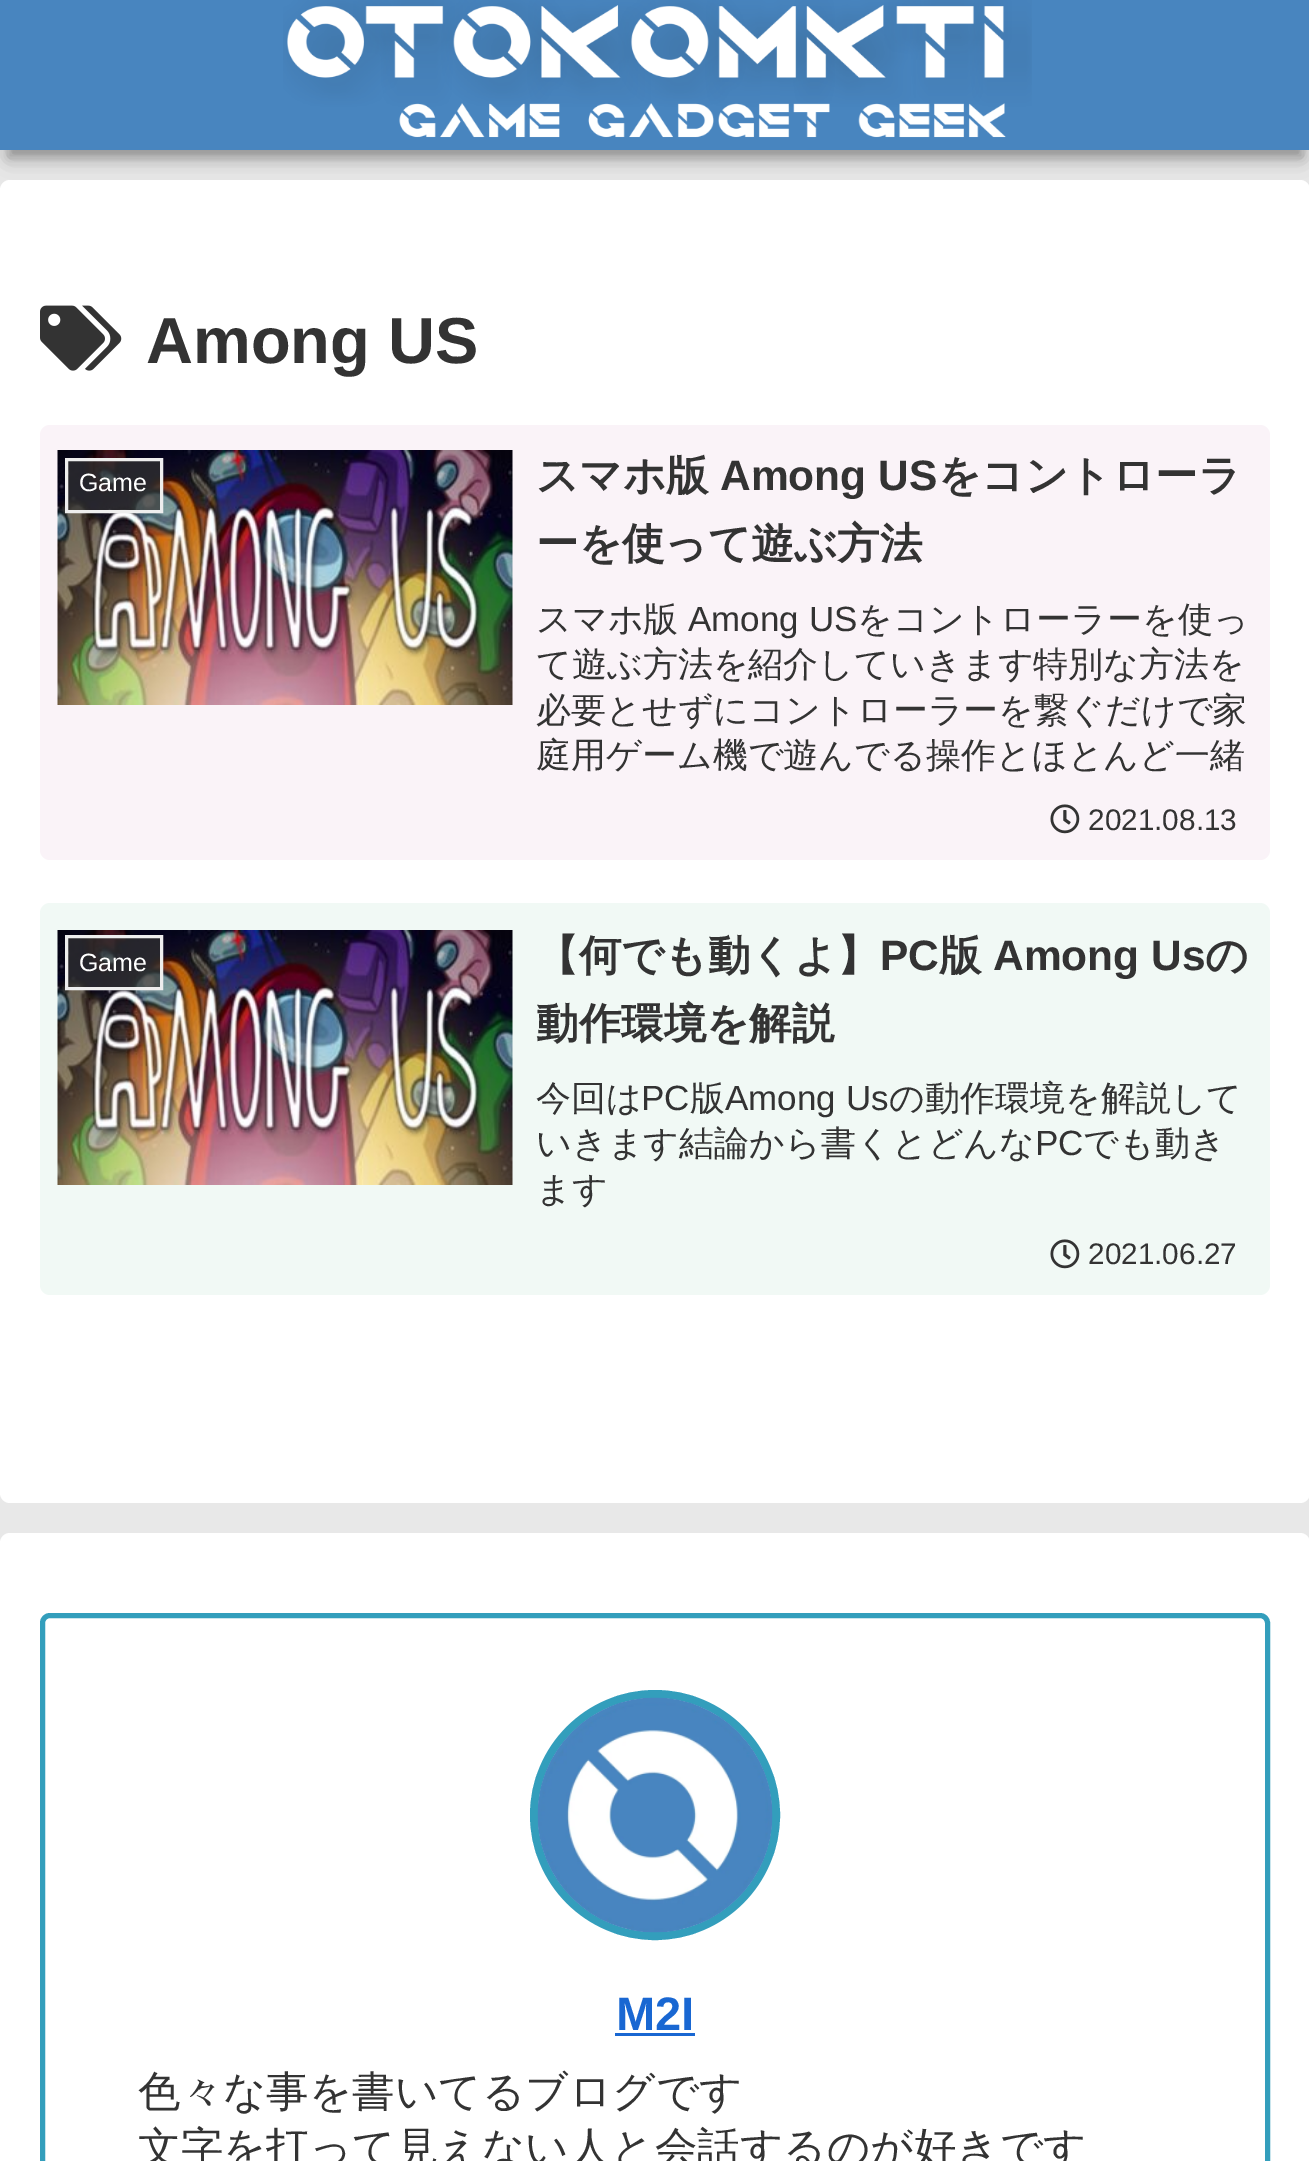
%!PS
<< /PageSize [1309 2161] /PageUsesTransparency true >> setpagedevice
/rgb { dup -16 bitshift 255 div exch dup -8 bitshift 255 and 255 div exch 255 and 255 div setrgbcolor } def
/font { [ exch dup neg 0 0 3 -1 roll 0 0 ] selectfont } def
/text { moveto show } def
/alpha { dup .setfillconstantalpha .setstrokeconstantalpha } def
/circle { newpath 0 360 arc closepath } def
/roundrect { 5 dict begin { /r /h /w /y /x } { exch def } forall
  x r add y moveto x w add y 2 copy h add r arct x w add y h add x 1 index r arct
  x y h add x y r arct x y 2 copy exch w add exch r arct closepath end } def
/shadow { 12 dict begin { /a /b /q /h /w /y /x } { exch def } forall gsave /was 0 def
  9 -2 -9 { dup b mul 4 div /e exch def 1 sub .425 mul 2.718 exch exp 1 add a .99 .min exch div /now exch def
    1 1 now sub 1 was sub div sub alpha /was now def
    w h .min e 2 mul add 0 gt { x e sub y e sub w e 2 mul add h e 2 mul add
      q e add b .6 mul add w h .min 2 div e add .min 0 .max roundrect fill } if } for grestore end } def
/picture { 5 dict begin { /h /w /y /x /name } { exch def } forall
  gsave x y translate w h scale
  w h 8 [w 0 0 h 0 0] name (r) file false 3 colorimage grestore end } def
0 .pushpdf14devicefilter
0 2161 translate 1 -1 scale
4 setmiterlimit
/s1 { /LiberationSans-Bold 65 font 16#333333 rgb } def
/s2 { /LiberationSans-Regular 25 font 16#FFFFFF rgb } def
/s3 { /WenQuanYiZenHei-Bold 42.5 font 16#333333 rgb } def
/s4 { /LiberationSans-Bold 42.5 font 16#333333 rgb } def
/s5 { /WenQuanYiZenHei-Medium 35 font 16#333333 rgb } def
/s6 { /LiberationSans-Regular 35 font 16#333333 rgb } def
/s7 { /LiberationSans-Regular 29.75 font 16#333333 rgb } def
/s8 { /LiberationSans-Bold 47 font 16#1967D2 rgb } def
/s9 { /WenQuanYiZenHei-Medium 42.5 font 16#333333 rgb } def
16#E8E8E8 rgb
0 0 1309 2161 rectfill
16#000000 rgb
8 23 1295 135 0 12.5 0.18 shadow
8 23 1295 135 0 6 0.24 shadow
16#4885BF rgb
0 0 1309 150 rectfill
(pic1.raw) 283 0 749 138 picture
16#FFFFFF rgb
0 180 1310 1323 10 roundrect fill
(pic2.raw) 40 305 82 66 picture
s1
(Among US) 146 363 text
16#FAF3F8 rgb
40 425 1230 435 10 roundrect fill
(pic3.raw) 57 450 456 255 picture
0.7 alpha
16#333333 rgb
66.5 459.5 moveto 161.5 459.5 lineto 161.5 511.5 lineto 66.5 511.5 lineto closepath fill
1 alpha
16#EEEEEE rgb
3 setlinewidth
66.5 459.5 moveto 161.5 459.5 lineto 161.5 511.5 lineto 66.5 511.5 lineto closepath stroke
s2
(Game) 79 491 text
s3
(スマホ版) 536 490 text
s4
(Among US) 720 490 text
s3
(をコントローラ) 938 490 text
(ーを使って遊ぶ方法) 536 558 text
s5
(スマホ版) 536 631 text
s6
(Among US) 688 631 text
s5
(をコントローラーを使っ) 857 631 text
(て遊ぶ方法を紹介していきます特別な方法を) 536 676 text
(必要とせずにコントローラーを繋ぐだけで家) 536 722 text
(庭用ゲーム機で遊んでる操作とほとんど一緒) 536 767 text
(pic4.raw) 1050 804 30 30 picture
s7
(2021.08.13) 1088 830 text
16#F1F9F5 rgb
40 903 1230 392 10 roundrect fill
(pic5.raw) 57 930 456 255 picture
0.7 alpha
16#333333 rgb
66.5 936.5 moveto 161.5 936.5 lineto 161.5 988.5 lineto 66.5 988.5 lineto closepath fill
1 alpha
16#EEEEEE rgb
66.5 936.5 moveto 161.5 936.5 lineto 161.5 988.5 lineto 66.5 988.5 lineto closepath stroke
s2
(Game) 79 971 text
s3
(【何でも動くよ】) 536 970 text
s4
(PC) 880 970 text
s3
(版) 939 970 text
s4
(Among Us) 993 970 text
s3
(の) 1205 970 text
(動作環境を解説) 536 1038 text
s5
(今回は) 536 1110 text
s6
(PC) 641 1110 text
s5
(版) 690 1110 text
s6
(Among Us) 725 1110 text
s5
(の動作環境を解説して) 889 1110 text
(いきます結論から書くとどんな) 536 1155 text
s6
(PC) 1035 1155 text
s5
(でも動き) 1083 1155 text
(ます) 536 1201 text
(pic6.raw) 1050 1239 30 30 picture
s7
(2021.06.27) 1088 1264 text
16#FFFFFF rgb
0 1533 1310 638 10 roundrect fill
16#339EBC rgb
5 setlinewidth
42.5 1615.5 1225 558 7.5 roundrect stroke
8 setlinewidth
655 1815 121 circle stroke
(pic7.raw) 537 1697 236 236 picture
s8
(M2I) 616 2030 text
615 2033 80 3 rectfill
s9
(色々な事を書いてるブログです) 138 2106 text
(文字を打って見えない人と会話するのが好きです) 138 2162 text
.poppdf14devicefilter showpage
